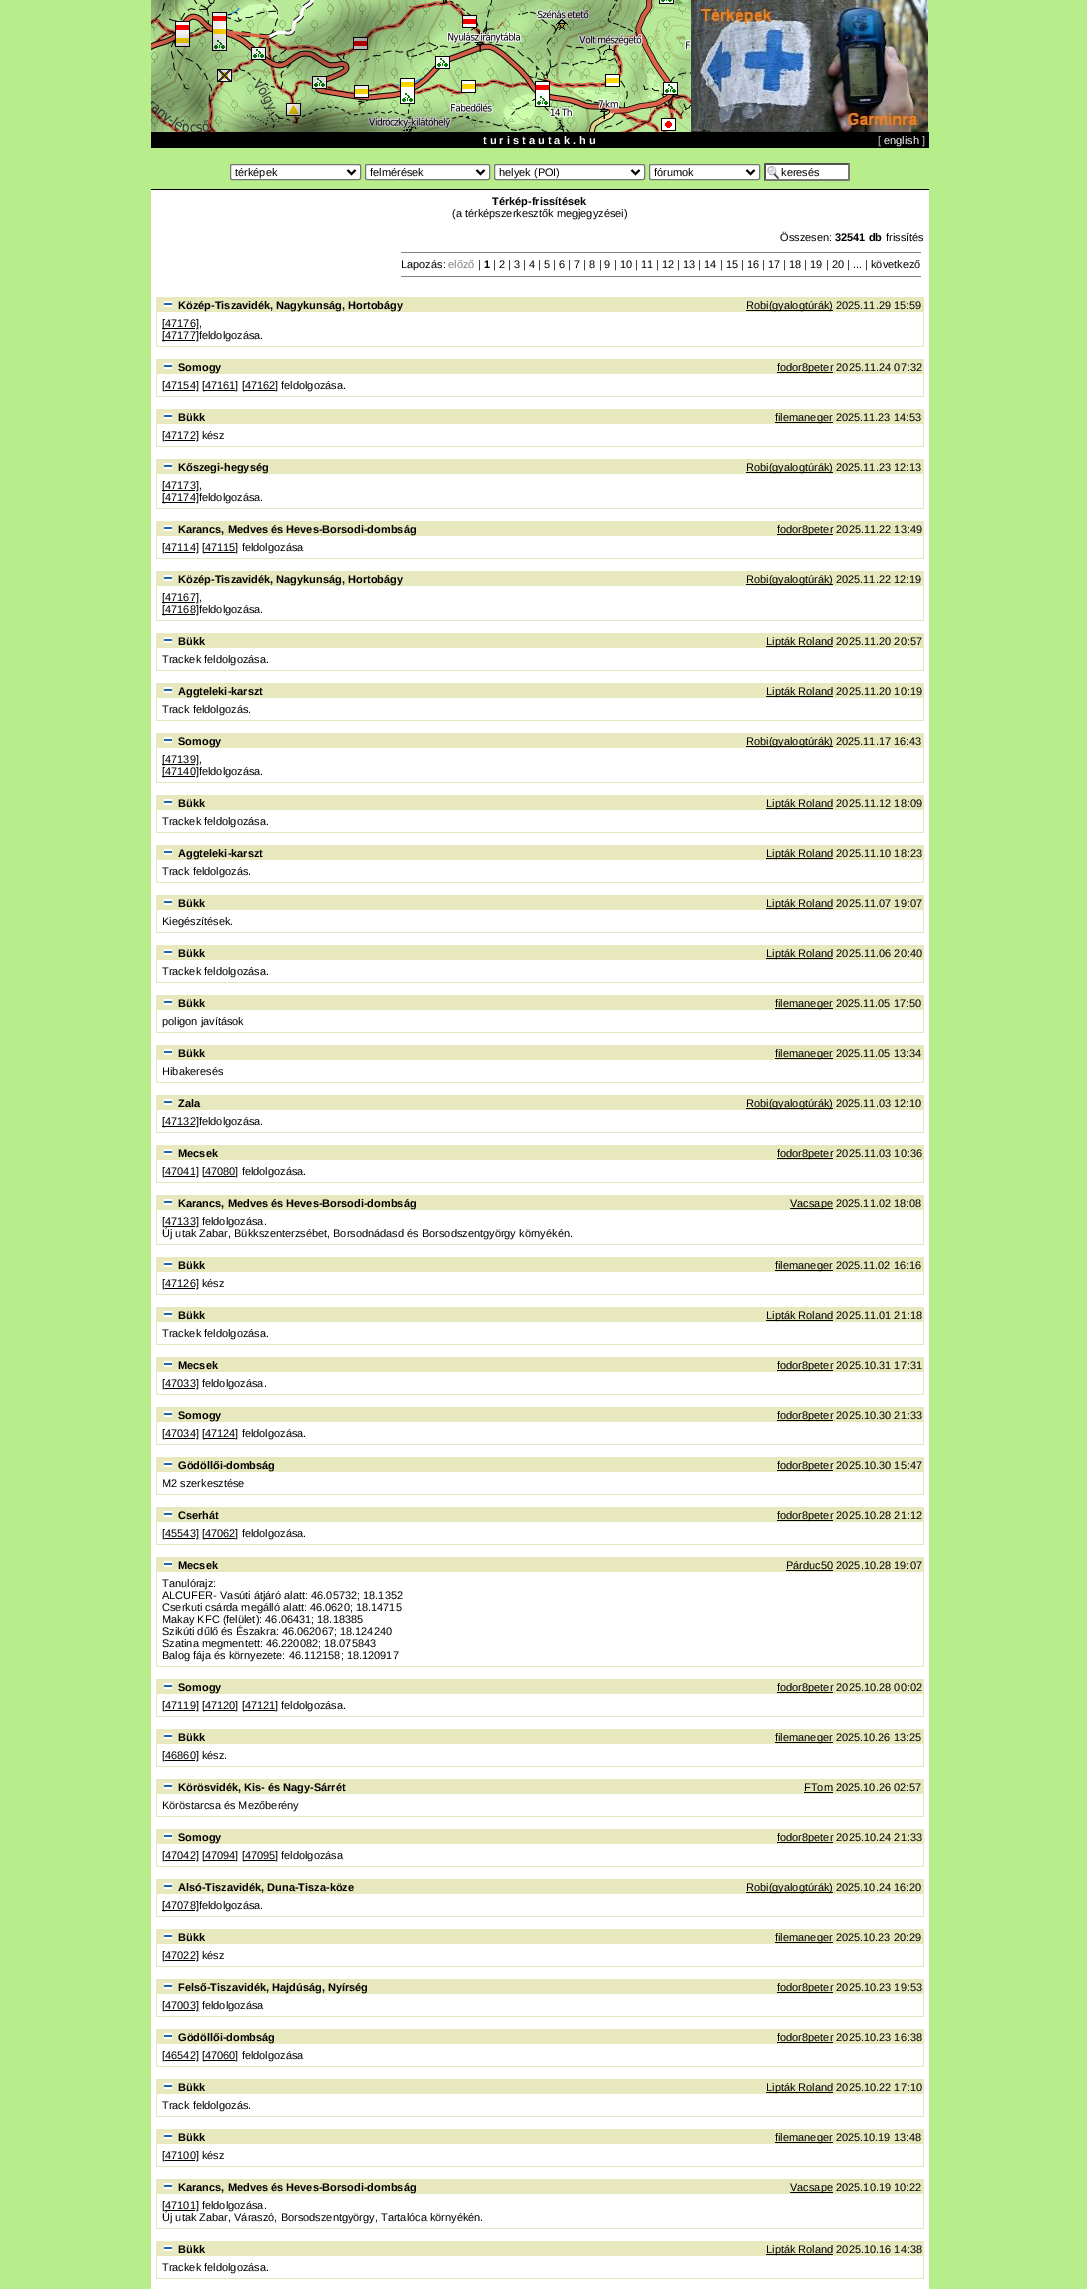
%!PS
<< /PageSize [1087 2289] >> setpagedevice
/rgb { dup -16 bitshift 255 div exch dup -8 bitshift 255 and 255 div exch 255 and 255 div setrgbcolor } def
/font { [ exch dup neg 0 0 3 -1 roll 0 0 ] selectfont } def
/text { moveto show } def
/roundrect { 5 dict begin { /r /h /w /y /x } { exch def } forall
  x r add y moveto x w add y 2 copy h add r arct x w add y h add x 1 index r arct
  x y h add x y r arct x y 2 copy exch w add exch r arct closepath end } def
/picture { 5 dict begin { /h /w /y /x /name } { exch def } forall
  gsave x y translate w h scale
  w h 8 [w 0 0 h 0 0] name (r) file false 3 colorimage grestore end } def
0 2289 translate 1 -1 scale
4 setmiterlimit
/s1 { /LiberationSans-Bold 11 font 16#FFFFFF rgb } def
/s2 { /LiberationSans-Regular 11 font 16#C0C0C0 rgb } def
/s3 { /LiberationSans-Regular 11 font 16#F8F8F8 rgb } def
/s4 { /LiberationSans-Regular 11 font 16#000000 rgb } def
/s5 { /LiberationSans-Bold 11 font 16#000000 rgb } def
/s6 { /LiberationSans-Regular 11 font 16#808080 rgb } def
16#B7ED8B rgb
0 0 1087 2289 rectfill
(pic1.raw) 151 0 540 132 picture
(pic2.raw) 691 0 237 132 picture
16#000000 rgb
151 132 778 16 rectfill
s1
(t u r i s t a u t a k . h u) 483 144 text
s2
([) 878 144 text
s3
(english) 884 144 text
s2
(]) 922 144 text
16#FFFFFF rgb
230.5 164.5 130 15 1.5 roundrect gsave fill grestore
16#767676 rgb
stroke
16#000000 rgb
2 setlinewidth
347.5 170 moveto 351.5 174 lineto 355.5 170 lineto stroke
(térképek) 235 176 text
16#FFFFFF rgb
365.5 164.5 124 15 1.5 roundrect gsave fill grestore
16#767676 rgb
1 setlinewidth
stroke
16#000000 rgb
2 setlinewidth
476.5 170 moveto 480.5 174 lineto 484.5 170 lineto stroke
(felmérések) 370 176 text
16#FFFFFF rgb
494.5 164.5 150 15 1.5 roundrect gsave fill grestore
16#767676 rgb
1 setlinewidth
stroke
16#000000 rgb
2 setlinewidth
631.5 170 moveto 635.5 174 lineto 639.5 170 lineto stroke
(helyek \(POI\)) 499 176 text
16#FFFFFF rgb
649.5 164.5 110 15 1.5 roundrect gsave fill grestore
16#767676 rgb
1 setlinewidth
stroke
16#000000 rgb
2 setlinewidth
746.5 170 moveto 750.5 174 lineto 754.5 170 lineto stroke
(fórumok) 654 176 text
16#FFFFFF rgb
764 163 86 18 rectfill
(pic3.raw) 767 166 12 13 picture
16#4F4F4F rgb
764 163 moveto 850 163 lineto 848 165 lineto 766 165 lineto closepath fill
16#767676 rgb
850 163 moveto 850 181 lineto 848 179 lineto 848 165 lineto closepath fill
850 181 moveto 764 181 lineto 766 179 lineto 848 179 lineto closepath fill
16#4F4F4F rgb
764 181 moveto 764 163 lineto 766 165 lineto 766 179 lineto closepath fill
s4
(keresés) 781 176 text
151 189 778 1 rectfill
16#FFFFFF rgb
151 190 778 2099 rectfill
s5
(Térkép-frissítések) 492 205 text
s4
(\(a térképszerkesztők megjegyzései\)) 452 217 text
(Összesen:) 780 241 text
s5
(32541 db) 835 241 text
s4
(frissítés) 886 241 text
16#808080 rgb
401 252 520 1 rectfill
s4
(Lapozás:) 401 268 text
s6
(előző) 448 268 text
s4
(|) 478 268 text
s5
(1) 484 268 text
s4
(| 2 | 3 | 4 | 5 | 6 | 7 | 8 | 9 | 10 | 11 | 12 | 13 | 14 | 15 | 16 | 17 | 18 | 19 | 20 | ... | következő) 493 268 text
16#808080 rgb
401 276 520 1 rectfill
16#E8E8BF rgb
156 297 768 50 rectfill
16#FFFFFF rgb
157 312 766 34 rectfill
(pic4.raw) 164 301 8 6 picture
s5
(Közép-Tiszavidék, Nagykunság, Hortobágy) 178 309 text
746 310 87 1 rectfill
s4
(Robi\(gyalogtúrák\) 2025.11.29 15:59) 746 309 text
162 328 33 1 rectfill
([47176],) 162 327 text
162 340 33 1 rectfill
([47177]feldolgozása.) 162 339 text
16#E8E8BF rgb
156 359 768 38 rectfill
16#FFFFFF rgb
157 374 766 22 rectfill
(pic4.raw) 164 363 8 6 picture
s5
(Somogy) 178 371 text
777 372 56 1 rectfill
s4
(fodor8peter 2025.11.24 07:32) 777 371 text
([47154] [47161] [47162) 162 389 text
244 390 31 1 rectfill
(] feldolgozása.) 275 389 text
165 390 30 1 rectfill
204 390 31 1 rectfill
16#E8E8BF rgb
156 409 768 38 rectfill
16#FFFFFF rgb
157 424 766 22 rectfill
(pic4.raw) 164 413 8 6 picture
s5
(Bükk) 178 421 text
775 422 58 1 rectfill
s4
(filemaneger 2025.11.23 14:53) 775 421 text
([47172] kész) 162 439 text
165 440 30 1 rectfill
16#E8E8BF rgb
156 459 768 50 rectfill
16#FFFFFF rgb
157 474 766 34 rectfill
(pic4.raw) 164 463 8 6 picture
s5
(Kőszegi-hegység) 178 471 text
746 472 87 1 rectfill
s4
(Robi\(gyalogtúrák\) 2025.11.23 12:13) 746 471 text
162 490 33 1 rectfill
([47173],) 162 489 text
162 502 33 1 rectfill
([47174]feldolgozása.) 162 501 text
16#E8E8BF rgb
156 521 768 38 rectfill
16#FFFFFF rgb
157 536 766 22 rectfill
(pic4.raw) 164 525 8 6 picture
s5
(Karancs, Medves és Heves-Borsodi-dombság) 178 533 text
777 534 56 1 rectfill
s4
(fodor8peter 2025.11.22 13:49) 777 533 text
([47114] [47115] feldolgozása) 162 551 text
165 552 30 1 rectfill
204 552 31 1 rectfill
16#E8E8BF rgb
156 571 768 50 rectfill
16#FFFFFF rgb
157 586 766 34 rectfill
(pic4.raw) 164 575 8 6 picture
s5
(Közép-Tiszavidék, Nagykunság, Hortobágy) 178 583 text
746 584 87 1 rectfill
s4
(Robi\(gyalogtúrák\) 2025.11.22 12:19) 746 583 text
162 602 33 1 rectfill
([47167],) 162 601 text
162 614 33 1 rectfill
([47168]feldolgozása.) 162 613 text
16#E8E8BF rgb
156 633 768 38 rectfill
16#FFFFFF rgb
157 648 766 22 rectfill
(pic4.raw) 164 637 8 6 picture
s5
(Bükk) 178 645 text
766 646 67 1 rectfill
s4
(Lipták Roland 2025.11.20 20:57) 766 645 text
(Trackek feldolgozása.) 162 663 text
16#E8E8BF rgb
156 683 768 38 rectfill
16#FFFFFF rgb
157 698 766 22 rectfill
(pic4.raw) 164 687 8 6 picture
s5
(Aggteleki-karszt) 178 695 text
766 696 67 1 rectfill
s4
(Lipták Roland 2025.11.20 10:19) 766 695 text
(Track feldolgozás.) 162 713 text
16#E8E8BF rgb
156 733 768 50 rectfill
16#FFFFFF rgb
157 748 766 34 rectfill
(pic4.raw) 164 737 8 6 picture
s5
(Somogy) 178 745 text
746 746 87 1 rectfill
s4
(Robi\(gyalogtúrák\) 2025.11.17 16:43) 746 745 text
162 764 33 1 rectfill
([47139],) 162 763 text
162 776 33 1 rectfill
([47140]feldolgozása.) 162 775 text
16#E8E8BF rgb
156 795 768 38 rectfill
16#FFFFFF rgb
157 810 766 22 rectfill
(pic4.raw) 164 799 8 6 picture
s5
(Bükk) 178 807 text
766 808 67 1 rectfill
s4
(Lipták Roland 2025.11.12 18:09) 766 807 text
(Trackek feldolgozása.) 162 825 text
16#E8E8BF rgb
156 845 768 38 rectfill
16#FFFFFF rgb
157 860 766 22 rectfill
(pic4.raw) 164 849 8 6 picture
s5
(Aggteleki-karszt) 178 857 text
766 858 67 1 rectfill
s4
(Lipták Roland 2025.11.10 18:23) 766 857 text
(Track feldolgozás.) 162 875 text
16#E8E8BF rgb
156 895 768 38 rectfill
16#FFFFFF rgb
157 910 766 22 rectfill
(pic4.raw) 164 899 8 6 picture
s5
(Bükk) 178 907 text
766 908 67 1 rectfill
s4
(Lipták Roland 2025.11.07 19:07) 766 907 text
(Kiegészítések.) 162 925 text
16#E8E8BF rgb
156 945 768 38 rectfill
16#FFFFFF rgb
157 960 766 22 rectfill
(pic4.raw) 164 949 8 6 picture
s5
(Bükk) 178 957 text
766 958 67 1 rectfill
s4
(Lipták Roland 2025.11.06 20:40) 766 957 text
(Trackek feldolgozása.) 162 975 text
16#E8E8BF rgb
156 995 768 38 rectfill
16#FFFFFF rgb
157 1010 766 22 rectfill
(pic4.raw) 164 999 8 6 picture
s5
(Bükk) 178 1007 text
775 1008 58 1 rectfill
s4
(filemaneger 2025.11.05 17:50) 775 1007 text
(poligon javítások) 162 1025 text
16#E8E8BF rgb
156 1045 768 38 rectfill
16#FFFFFF rgb
157 1060 766 22 rectfill
(pic4.raw) 164 1049 8 6 picture
s5
(Bükk) 178 1057 text
775 1058 58 1 rectfill
s4
(filemaneger 2025.11.05 13:34) 775 1057 text
(Hibakeresés) 162 1075 text
16#E8E8BF rgb
156 1095 768 38 rectfill
16#FFFFFF rgb
157 1110 766 22 rectfill
(pic4.raw) 164 1099 8 6 picture
s5
(Zala) 178 1107 text
746 1108 87 1 rectfill
s4
(Robi\(gyalogtúrák\) 2025.11.03 12:10) 746 1107 text
162 1126 33 1 rectfill
([47132]feldolgozása.) 162 1125 text
16#E8E8BF rgb
156 1145 768 38 rectfill
16#FFFFFF rgb
157 1160 766 22 rectfill
(pic4.raw) 164 1149 8 6 picture
s5
(Mecsek) 178 1157 text
777 1158 56 1 rectfill
s4
(fodor8peter 2025.11.03 10:36) 777 1157 text
([47041] [47080] feldolgozása.) 162 1175 text
165 1176 30 1 rectfill
204 1176 31 1 rectfill
16#E8E8BF rgb
156 1195 768 50 rectfill
16#FFFFFF rgb
157 1210 766 34 rectfill
(pic4.raw) 164 1199 8 6 picture
s5
(Karancs, Medves és Heves-Borsodi-dombság) 178 1207 text
790 1208 43 1 rectfill
s4
(Vacsape 2025.11.02 18:08) 790 1207 text
([47133] feldolgozása.) 162 1225 text
165 1226 30 1 rectfill
(Új utak Zabar, Bükkszenterzsébet, Borsodnádasd és Borsodszentgyörgy környékén.) 162 1237 text
16#E8E8BF rgb
156 1257 768 38 rectfill
16#FFFFFF rgb
157 1272 766 22 rectfill
(pic4.raw) 164 1261 8 6 picture
s5
(Bükk) 178 1269 text
775 1270 58 1 rectfill
s4
(filemaneger 2025.11.02 16:16) 775 1269 text
([47126] kész) 162 1287 text
165 1288 30 1 rectfill
16#E8E8BF rgb
156 1307 768 38 rectfill
16#FFFFFF rgb
157 1322 766 22 rectfill
(pic4.raw) 164 1311 8 6 picture
s5
(Bükk) 178 1319 text
766 1320 67 1 rectfill
s4
(Lipták Roland 2025.11.01 21:18) 766 1319 text
(Trackek feldolgozása.) 162 1337 text
16#E8E8BF rgb
156 1357 768 38 rectfill
16#FFFFFF rgb
157 1372 766 22 rectfill
(pic4.raw) 164 1361 8 6 picture
s5
(Mecsek) 178 1369 text
777 1370 56 1 rectfill
s4
(fodor8peter 2025.10.31 17:31) 777 1369 text
([47033] feldolgozása.) 162 1387 text
165 1388 30 1 rectfill
16#E8E8BF rgb
156 1407 768 38 rectfill
16#FFFFFF rgb
157 1422 766 22 rectfill
(pic4.raw) 164 1411 8 6 picture
s5
(Somogy) 178 1419 text
777 1420 56 1 rectfill
s4
(fodor8peter 2025.10.30 21:33) 777 1419 text
([47034] [47124] feldolgozása.) 162 1437 text
165 1438 30 1 rectfill
204 1438 31 1 rectfill
16#E8E8BF rgb
156 1457 768 38 rectfill
16#FFFFFF rgb
157 1472 766 22 rectfill
(pic4.raw) 164 1461 8 6 picture
s5
(Gödöllői-dombság) 178 1469 text
777 1470 56 1 rectfill
s4
(fodor8peter 2025.10.30 15:47) 777 1469 text
(M2 szerkesztése) 162 1487 text
16#E8E8BF rgb
156 1507 768 38 rectfill
16#FFFFFF rgb
157 1522 766 22 rectfill
(pic4.raw) 164 1511 8 6 picture
s5
(Cserhát) 178 1519 text
777 1520 56 1 rectfill
s4
(fodor8peter 2025.10.28 21:12) 777 1519 text
([45543] [47062] feldolgozása.) 162 1537 text
165 1538 30 1 rectfill
204 1538 31 1 rectfill
16#E8E8BF rgb
156 1557 768 110 rectfill
16#FFFFFF rgb
157 1572 766 94 rectfill
(pic4.raw) 164 1561 8 6 picture
s5
(Mecsek) 178 1569 text
s4
(Párduc50 2025.10.28 19:07) 786 1569 text
786 1570 47 1 rectfill
(Tanulórajz:) 162 1587 text
(ALCUFER- Vasúti átjáró alatt: 46.05732; 18.1352) 162 1599 text
(Cserkuti csárda megálló alatt: 46.0620; 18.14715) 162 1611 text
(Makay KFC \(felület\): 46.06431; 18.18385) 162 1623 text
(Szikúti dűlő és Északra: 46.062067; 18.124240) 162 1635 text
(Szatina megmentett: 46.220082; 18.075843) 162 1647 text
(Balog fája és környezete: 46.112158; 18.120917) 162 1659 text
16#E8E8BF rgb
156 1679 768 38 rectfill
16#FFFFFF rgb
157 1694 766 22 rectfill
(pic4.raw) 164 1683 8 6 picture
s5
(Somogy) 178 1691 text
777 1692 56 1 rectfill
s4
(fodor8peter 2025.10.28 00:02) 777 1691 text
([47119] [47120] [47121) 162 1709 text
244 1710 31 1 rectfill
(] feldolgozása.) 275 1709 text
165 1710 30 1 rectfill
204 1710 31 1 rectfill
16#E8E8BF rgb
156 1729 768 38 rectfill
16#FFFFFF rgb
157 1744 766 22 rectfill
(pic4.raw) 164 1733 8 6 picture
s5
(Bükk) 178 1741 text
775 1742 58 1 rectfill
s4
(filemaneger 2025.10.26 13:25) 775 1741 text
([46860] kész.) 162 1759 text
165 1760 30 1 rectfill
16#E8E8BF rgb
156 1779 768 38 rectfill
16#FFFFFF rgb
157 1794 766 22 rectfill
(pic4.raw) 164 1783 8 6 picture
s5
(Körösvidék, Kis- és Nagy-Sárrét) 178 1791 text
s4
(FTom 2025.10.26 02:57) 804 1791 text
804 1792 29 1 rectfill
(Köröstarcsa és Mezőberény) 162 1809 text
16#E8E8BF rgb
156 1829 768 38 rectfill
16#FFFFFF rgb
157 1844 766 22 rectfill
(pic4.raw) 164 1833 8 6 picture
s5
(Somogy) 178 1841 text
777 1842 56 1 rectfill
s4
(fodor8peter 2025.10.24 21:33) 777 1841 text
([47042] [47094] [47095) 162 1859 text
244 1860 31 1 rectfill
(] feldolgozása) 275 1859 text
165 1860 30 1 rectfill
204 1860 31 1 rectfill
16#E8E8BF rgb
156 1879 768 38 rectfill
16#FFFFFF rgb
157 1894 766 22 rectfill
(pic4.raw) 164 1883 8 6 picture
s5
(Alsó-Tiszavidék, Duna-Tisza-köze) 178 1891 text
746 1892 87 1 rectfill
s4
(Robi\(gyalogtúrák\) 2025.10.24 16:20) 746 1891 text
162 1910 33 1 rectfill
([47078]feldolgozása.) 162 1909 text
16#E8E8BF rgb
156 1929 768 38 rectfill
16#FFFFFF rgb
157 1944 766 22 rectfill
(pic4.raw) 164 1933 8 6 picture
s5
(Bükk) 178 1941 text
775 1942 58 1 rectfill
s4
(filemaneger 2025.10.23 20:29) 775 1941 text
([47022] kész) 162 1959 text
165 1960 30 1 rectfill
16#E8E8BF rgb
156 1979 768 38 rectfill
16#FFFFFF rgb
157 1994 766 22 rectfill
(pic4.raw) 164 1983 8 6 picture
s5
(Felső-Tiszavidék, Hajdúság, Nyírség) 178 1991 text
777 1992 56 1 rectfill
s4
(fodor8peter 2025.10.23 19:53) 777 1991 text
([47003] feldolgozása) 162 2009 text
165 2010 30 1 rectfill
16#E8E8BF rgb
156 2029 768 38 rectfill
16#FFFFFF rgb
157 2044 766 22 rectfill
(pic4.raw) 164 2033 8 6 picture
s5
(Gödöllői-dombság) 178 2041 text
777 2042 56 1 rectfill
s4
(fodor8peter 2025.10.23 16:38) 777 2041 text
([46542] [47060] feldolgozása) 162 2059 text
165 2060 30 1 rectfill
204 2060 31 1 rectfill
16#E8E8BF rgb
156 2079 768 38 rectfill
16#FFFFFF rgb
157 2094 766 22 rectfill
(pic4.raw) 164 2083 8 6 picture
s5
(Bükk) 178 2091 text
766 2092 67 1 rectfill
s4
(Lipták Roland 2025.10.22 17:10) 766 2091 text
(Track feldolgozás.) 162 2109 text
16#E8E8BF rgb
156 2129 768 38 rectfill
16#FFFFFF rgb
157 2144 766 22 rectfill
(pic4.raw) 164 2133 8 6 picture
s5
(Bükk) 178 2141 text
775 2142 58 1 rectfill
s4
(filemaneger 2025.10.19 13:48) 775 2141 text
([47100] kész) 162 2159 text
165 2160 30 1 rectfill
16#E8E8BF rgb
156 2179 768 50 rectfill
16#FFFFFF rgb
157 2194 766 34 rectfill
(pic4.raw) 164 2183 8 6 picture
s5
(Karancs, Medves és Heves-Borsodi-dombság) 178 2191 text
790 2192 43 1 rectfill
s4
(Vacsape 2025.10.19 10:22) 790 2191 text
([47101] feldolgozása.) 162 2209 text
165 2210 30 1 rectfill
(Új utak Zabar, Váraszó, Borsodszentgyörgy, Tartalóca környékén.) 162 2221 text
16#E8E8BF rgb
156 2241 768 38 rectfill
16#FFFFFF rgb
157 2256 766 22 rectfill
(pic4.raw) 164 2245 8 6 picture
s5
(Bükk) 178 2253 text
766 2254 67 1 rectfill
s4
(Lipták Roland 2025.10.16 14:38) 766 2253 text
(Trackek feldolgozása.) 162 2271 text
showpage
